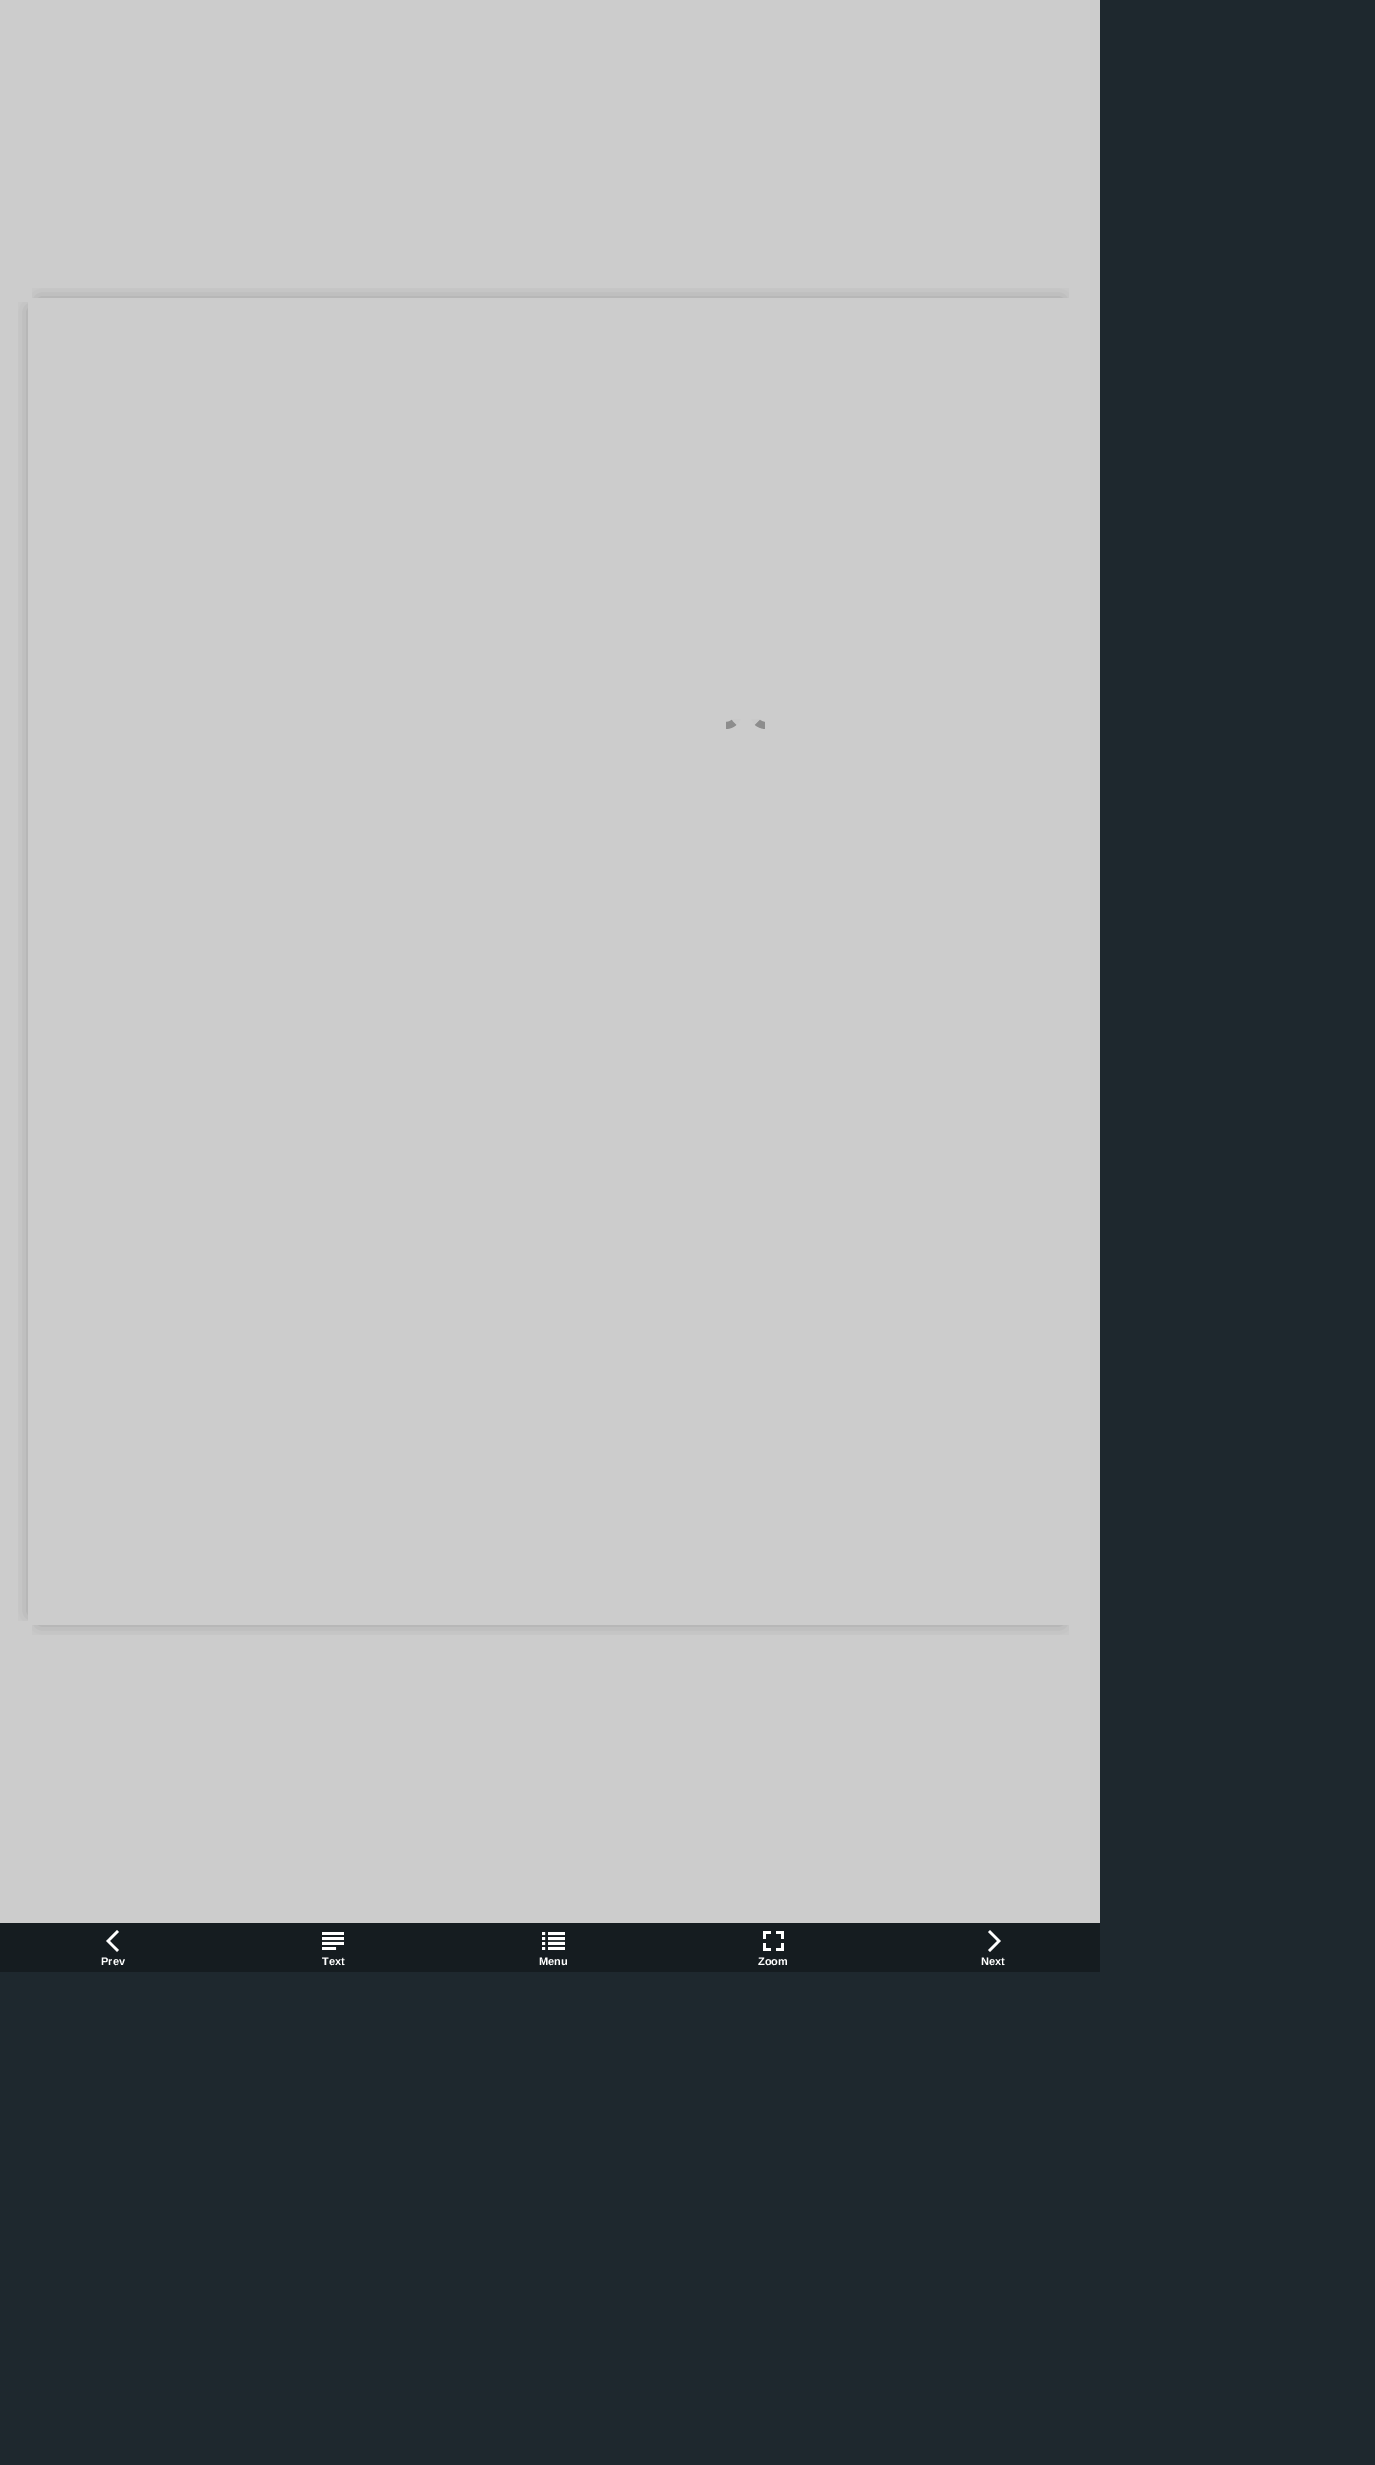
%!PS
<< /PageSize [1375 2465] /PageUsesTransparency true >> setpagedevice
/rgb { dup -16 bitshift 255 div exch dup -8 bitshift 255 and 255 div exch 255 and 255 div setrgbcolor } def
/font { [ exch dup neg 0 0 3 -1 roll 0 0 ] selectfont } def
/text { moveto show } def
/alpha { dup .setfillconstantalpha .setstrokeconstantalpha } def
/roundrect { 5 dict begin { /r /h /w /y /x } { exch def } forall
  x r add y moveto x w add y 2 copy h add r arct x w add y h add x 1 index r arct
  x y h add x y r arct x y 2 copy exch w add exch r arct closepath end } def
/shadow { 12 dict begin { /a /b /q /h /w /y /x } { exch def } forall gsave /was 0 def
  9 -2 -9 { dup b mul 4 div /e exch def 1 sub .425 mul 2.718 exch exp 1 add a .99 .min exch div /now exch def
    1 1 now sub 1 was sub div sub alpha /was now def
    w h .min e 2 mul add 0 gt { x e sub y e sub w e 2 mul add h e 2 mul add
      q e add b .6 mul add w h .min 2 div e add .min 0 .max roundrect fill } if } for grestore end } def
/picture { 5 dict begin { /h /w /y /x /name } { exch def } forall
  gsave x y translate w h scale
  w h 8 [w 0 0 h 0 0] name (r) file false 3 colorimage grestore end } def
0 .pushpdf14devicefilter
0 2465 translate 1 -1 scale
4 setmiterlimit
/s1 { /LiberationSans-Bold 11 font 16#FFFFFF rgb } def
16#1E282E rgb
0 0 1375 2465 rectfill
16#CCCCCC rgb
0 0 1100 1923 rectfill
gsave
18 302 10 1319 rectclip
16#000000 rgb
28 308 1025 1307 0 7.5 0.2 shadow
grestore
gsave
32 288 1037 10 rectclip
16#000000 rgb
38 298 1025 1307 0 7.5 0.2 shadow
grestore
gsave
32 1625 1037 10 rectclip
16#000000 rgb
38 318 1025 1307 0 7.5 0.2 shadow
grestore
(pic1.raw) 726 719 39 10 picture
16#151C20 rgb
0 1923 1100 49 rectfill
(pic2.raw) 106 1930 13 22 picture
s1
(Prev) 101 1965 text
(pic3.raw) 322 1932 22 18 picture
(Text) 322 1965 text
(pic4.raw) 542 1932 23 18 picture
(Menu) 539 1965 text
(pic5.raw) 763 1931 21 20 picture
(Zoom) 758 1965 text
(pic6.raw) 988 1930 13 22 picture
(Next) 981 1965 text
.poppdf14devicefilter showpage
